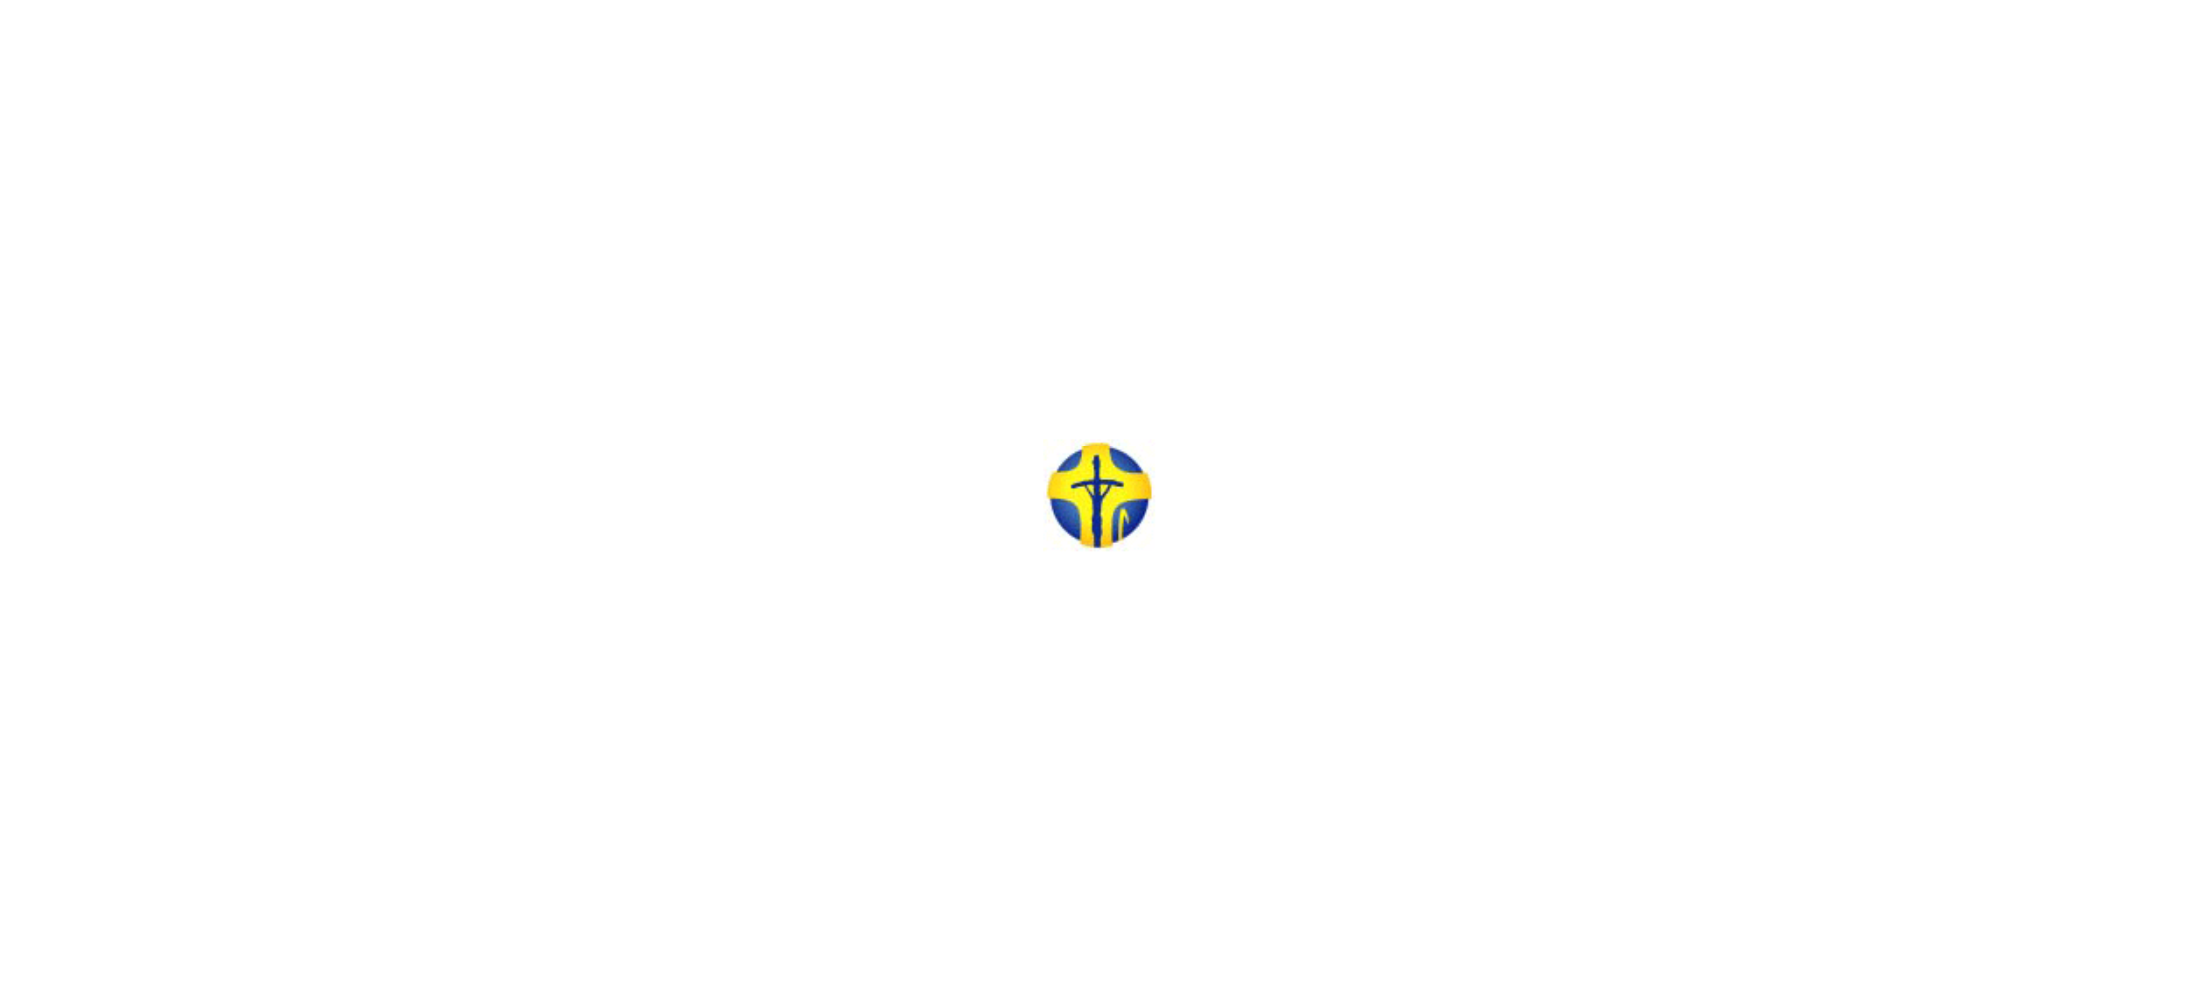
%!PS
<< /PageSize [2196 990] >> setpagedevice
/rgb { dup -16 bitshift 255 div exch dup -8 bitshift 255 and 255 div exch 255 and 255 div setrgbcolor } def
/picture { 5 dict begin { /h /w /y /x /name } { exch def } forall
  gsave x y translate w h scale
  w h 8 [w 0 0 h 0 0] name (r) file false 3 colorimage grestore end } def
0 990 translate 1 -1 scale
4 setmiterlimit
16#FFFFFF rgb
0 0 2196 990 rectfill
(pic1.raw) 1043 439 113 113 picture
showpage
